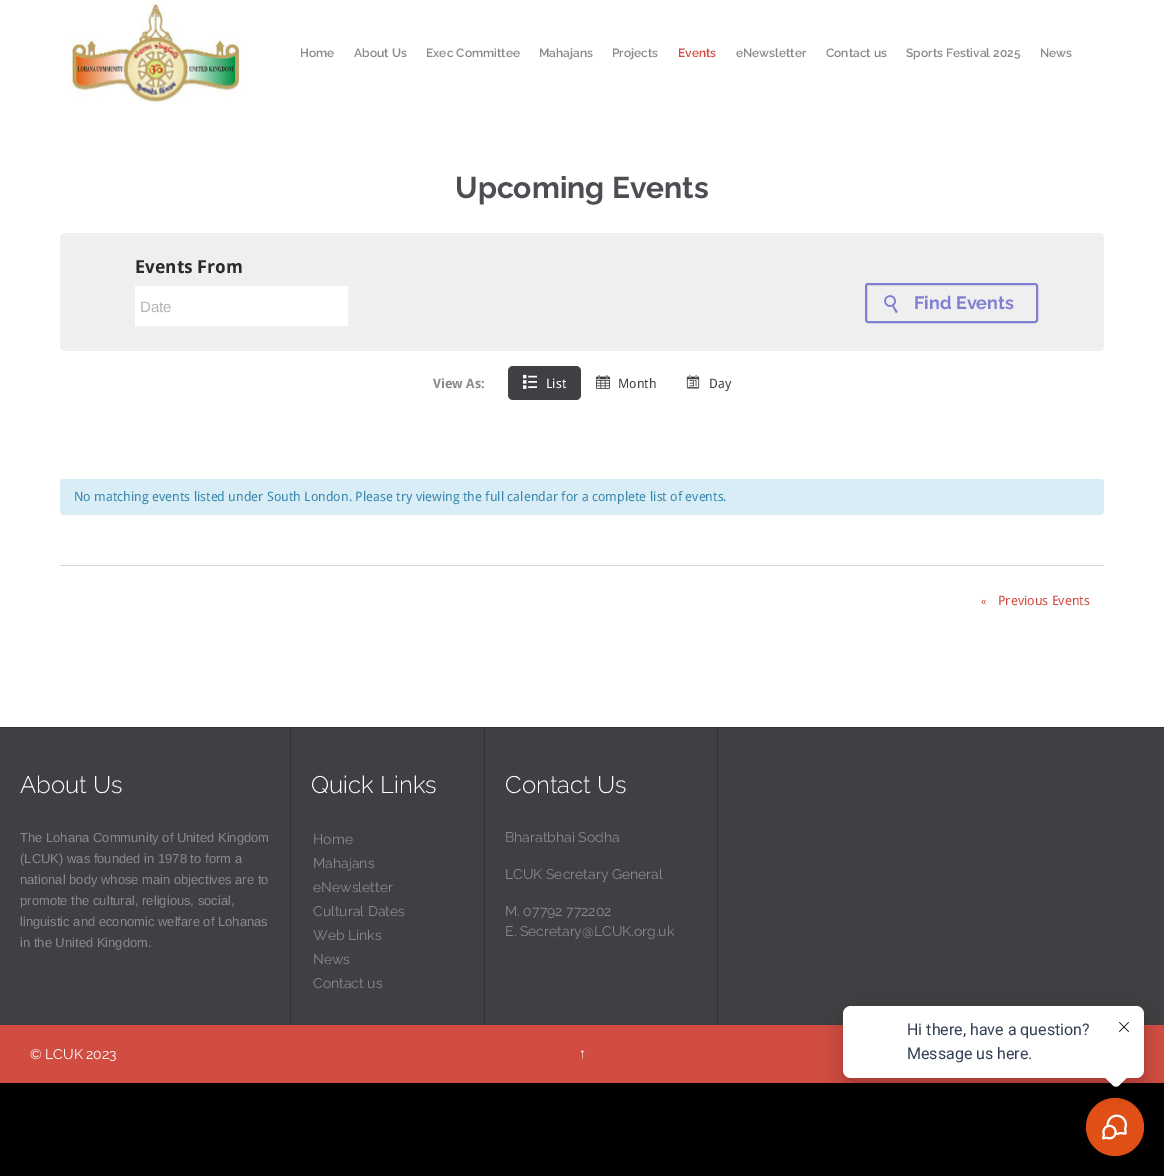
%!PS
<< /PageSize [1164 1176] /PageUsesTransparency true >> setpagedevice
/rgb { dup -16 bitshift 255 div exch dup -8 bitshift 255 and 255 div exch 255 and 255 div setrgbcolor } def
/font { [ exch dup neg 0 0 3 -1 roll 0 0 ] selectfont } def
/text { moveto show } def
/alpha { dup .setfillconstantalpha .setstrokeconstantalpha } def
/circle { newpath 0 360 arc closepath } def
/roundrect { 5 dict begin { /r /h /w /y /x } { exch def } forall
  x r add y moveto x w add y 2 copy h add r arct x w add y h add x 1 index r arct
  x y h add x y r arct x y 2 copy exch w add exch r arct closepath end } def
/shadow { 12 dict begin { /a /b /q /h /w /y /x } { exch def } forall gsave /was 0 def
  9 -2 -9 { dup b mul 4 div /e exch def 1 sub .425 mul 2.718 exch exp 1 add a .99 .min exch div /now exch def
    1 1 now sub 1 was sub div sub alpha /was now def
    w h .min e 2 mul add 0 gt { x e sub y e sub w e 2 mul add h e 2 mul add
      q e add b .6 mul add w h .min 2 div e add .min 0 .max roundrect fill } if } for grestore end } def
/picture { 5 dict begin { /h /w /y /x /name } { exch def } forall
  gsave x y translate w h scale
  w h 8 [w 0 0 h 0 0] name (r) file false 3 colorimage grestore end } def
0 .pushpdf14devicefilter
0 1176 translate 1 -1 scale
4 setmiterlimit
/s1 { /Raleway-SemiBold 12 font 16#898989 rgb } def
/s2 { /Raleway-SemiBold 12 font 16#D14D42 rgb } def
/s3 { /Raleway-Bold 30 font 16#4D4E53 rgb } def
/s4 { /DroidSans-Bold 18 font 16#2B2B2B rgb } def
/s5 { /LiberationSans-Regular 15 font 16#B3B3B3 rgb } def
/s6 { /Raleway-Bold 18 font 16#827FD1 rgb } def
/s7 { /DroidSans-Bold 13 font 16#898989 rgb } def
/s8 { /DroidSans-Regular 13 font 16#FFFFFF rgb } def
/s9 { /DroidSans-Regular 13 font 16#3E4043 rgb } def
/s10 { /DroidSans-Regular 13 font 16#3A87AD rgb } def
/s11 { /DroidSans-Regular 11 font 16#D14D42 rgb } def
/s12 { /DroidSans-Regular 13 font 16#D14D42 rgb } def
/s13 { /Raleway-Light 24 font 16#FFFFFF rgb } def
/s14 { /LiberationSans-Regular 13 font 16#898989 rgb } def
/s15 { /Raleway-Regular 14 font 16#898989 rgb } def
/s16 { /Raleway-Regular 14 font 16#FFFFFF rgb } def
/s17 { /LiberationSerif-Regular 14 font 16#FFFFFF rgb } def
/s18 { /Roboto-Regular 16 font 16#344054 rgb } def
16#000000 rgb
0 0 1164 1176 rectfill
16#FFFFFF rgb
0 0 1164 727 rectfill
(pic1.raw) 68 0 175 104 picture
s1
(Home) 300 57 text
(About Us) 354 57 text
(Exec Committee) 426 57 text
(Mahajans) 539 57 text
(Projects) 612 57 text
s2
(Events) 678 57 text
s1
(eNewsletter) 736 57 text
(Contact us) 826 57 text
(Sports Festival 2025) 906 57 text
(News) 1040 57 text
s3
(Upcoming Events) 455 198 text
16#EFEFEF rgb
60 233 1044 118 5 roundrect fill
s4
(Events From) 135 273 text
16#FFFFFF rgb
135 286 213 40 rectfill
s5
(Date) 140 312 text
16#827FD1 rgb
2 setlinewidth
866 284 171 38 2 roundrect stroke
(pic2.raw) 884 295 14 18 picture
s6
(Find Events) 914 309 text
s7
(View As:) 433 388 text
16#3E4043 rgb
508 366 73 34 5 roundrect fill
(pic3.raw) 523 374 14 15 picture
s8
(List) 546 388 text
(pic4.raw) 596 374 14 15 picture
s9
(Month) 618 388 text
(pic5.raw) 686 374 14 15 picture
(Day) 709 388 text
16#D9EDF7 rgb
60 479 1044 36 4 roundrect fill
s10
(No matching events listed under South London. Please try viewing the full calendar for a complete list of events.) 74 501 text
16#D4D4D4 rgb
60 565 1044 1 rectfill
s11
(«) 981 605 text
s12
(Previous Events) 998 605 text
16#3E4043 rgb
0 728 1164 297 rectfill
16#323336 rgb
0 727 1164 1 rectfill
290 728 1 297 rectfill
s13
(About Us) 20 793 text
s14
(The Lohana Community of United Kingdom) 20 842 text
(\(LCUK\) was founded in 1978 to form a) 20 863 text
(national body whose main objectives are to) 20 884 text
(promote the cultural, religious, social,) 20 905 text
(linguistic and economic welfare of Lohanas) 20 926 text
(in the United Kingdom.) 20 947 text
16#323336 rgb
484 728 1 297 rectfill
s13
(Quick Links) 311 793 text
s15
(Home) 313 844 text
(Mahajans) 313 868 text
(eNewsletter) 313 892 text
(Cultural Dates) 313 916 text
(Web Links) 313 940 text
(News) 313 964 text
(Contact us) 313 988 text
16#323336 rgb
717 728 1 297 rectfill
s13
(Contact Us) 505 793 text
s15
(Bharatbhai Sodha) 505 842 text
(LCUK Secretary General) 505 879 text
(M. 07792 772202) 505 916 text
(E. Secretary@LCUK.org.uk) 505 936 text
16#D14D42 rgb
0 1025 1164 58 rectfill
s16
(© LCUK 2023) 30 1059 text
s17
(↑) 579 1058 text
16#E04F16 rgb
1115 1127 29 circle fill
(pic7.raw) 1102 1114 25 26 picture
16#000000 rgb
843 1014 301 72 8 10 0.24 shadow
16#FFFFFF rgb
843 1006 301 72 8 roundrect fill
s18
(Hi there, have a question?) 907 1035 text
(Message us here.) 907 1059 text
16#FFFFFF rgb
1119 1062.5 moveto 1127.5 1071 lineto 1129 1072.5 1129 1075.5 1127.5 1077 curveto 1119 1085.5 lineto 1117.5 1087 1114.5 1087 1113 1085.5 curveto 1104.5 1077 lineto 1103 1075.5 1103 1072.5 1104.5 1071 curveto 1113 1062.5 lineto 1114.5 1061 1117.5 1061 1119 1062.5 curveto closepath fill
(pic6.raw) 1119 1022 10 10 picture
.poppdf14devicefilter showpage
